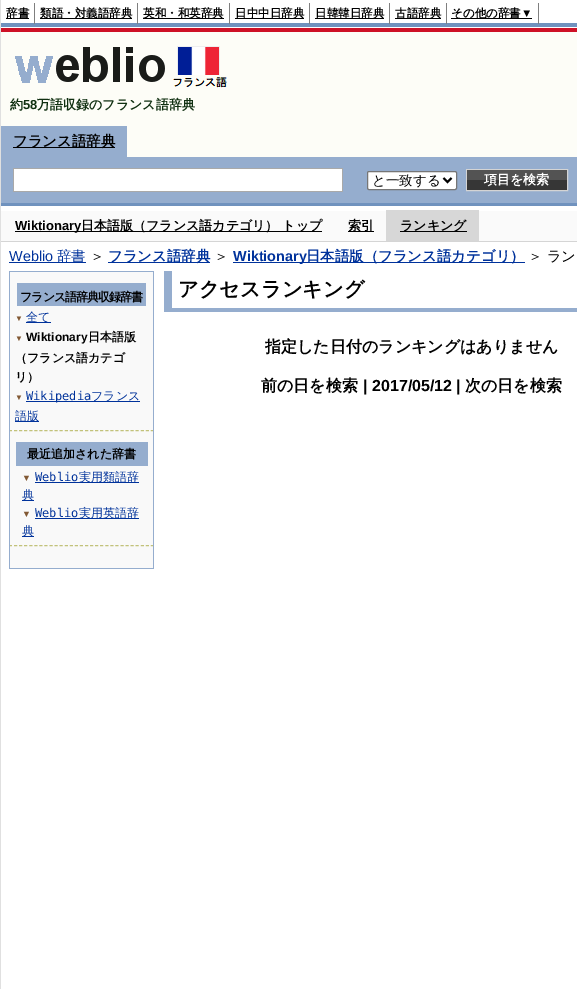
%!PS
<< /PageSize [577 989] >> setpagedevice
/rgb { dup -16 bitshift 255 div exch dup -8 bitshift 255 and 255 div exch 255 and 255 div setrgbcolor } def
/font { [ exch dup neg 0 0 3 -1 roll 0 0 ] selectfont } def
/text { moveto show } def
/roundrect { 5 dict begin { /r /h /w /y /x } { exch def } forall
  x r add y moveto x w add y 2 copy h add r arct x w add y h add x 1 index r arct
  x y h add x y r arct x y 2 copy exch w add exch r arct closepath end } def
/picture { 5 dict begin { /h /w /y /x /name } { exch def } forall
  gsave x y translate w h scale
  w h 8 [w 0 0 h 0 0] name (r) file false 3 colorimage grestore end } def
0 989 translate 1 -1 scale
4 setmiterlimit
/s1 { /WenQuanYiZenHei-Bold 11.5 font 16#000000 rgb } def
/s2 { /LiberationSans-Bold 11.5 font 16#000000 rgb } def
/s3 { /WenQuanYiZenHei-Bold 13 font 16#103011 rgb } def
/s4 { /LiberationSans-Bold 13 font 16#103011 rgb } def
/s5 { /WenQuanYiZenHei-Bold 14.4 font 16#000000 rgb } def
/s6 { /WenQuanYiZenHei-Medium 13.5 font 16#000000 rgb } def
/s7 { /WenQuanYiZenHei-Bold 13 font 16#FFFFFF rgb } def
/s8 { /LiberationSans-Bold 13 font 16#000000 rgb } def
/s9 { /WenQuanYiZenHei-Bold 13 font 16#000000 rgb } def
/s10 { /LiberationSans-Regular 14.4 font 16#00329B rgb } def
/s11 { /WenQuanYiZenHei-Medium 14.4 font 16#00329B rgb } def
/s12 { /WenQuanYiZenHei-Medium 14.4 font 16#000000 rgb } def
/s13 { /WenQuanYiZenHei-Bold 14.4 font 16#00329B rgb } def
/s14 { /LiberationSans-Bold 14.4 font 16#00329B rgb } def
/s15 { /LiberationSans-Bold 8 font 16#825934 rgb } def
/s16 { /WenQuanYiZenHei-Medium 12 font 16#00329B rgb } def
/s17 { /LiberationSans-Bold 12 font 16#000000 rgb } def
/s18 { /WenQuanYiZenHei-Bold 12 font 16#000000 rgb } def
/s19 { /DejaVuSansMono-Regular 12 font 16#00329B rgb } def
/s20 { /LiberationSans-Regular 9 font 16#825934 rgb } def
/s21 { /WenQuanYiZenHei-Bold 20.25 font 16#000000 rgb } def
/s22 { /WenQuanYiZenHei-Bold 16 font 16#000000 rgb } def
/s23 { /LiberationSans-Bold 16 font 16#000000 rgb } def
16#FFFFFF rgb
0 0 577 989 rectfill
16#E0E0E0 rgb
0 0 1 989 rectfill
16#7092BE rgb
1 23 576 4 rectfill
16#7F7F7F rgb
34 3 1 21 rectfill
16#000000 rgb
6 18 23 1 rectfill
s1
(辞書) 6 17 text
16#7F7F7F rgb
137 3 1 21 rectfill
16#000000 rgb
40 18 92 1 rectfill
(類語・対義語辞典) 40 17 text
16#7F7F7F rgb
229 3 1 21 rectfill
16#000000 rgb
143 18 81 1 rectfill
(英和・和英辞典) 143 17 text
16#7F7F7F rgb
309 3 1 21 rectfill
16#000000 rgb
235 18 69 1 rectfill
(日中中日辞典) 235 17 text
16#7F7F7F rgb
389 3 1 21 rectfill
16#000000 rgb
315 18 69 1 rectfill
(日韓韓日辞典) 315 17 text
16#7F7F7F rgb
446 3 1 21 rectfill
16#000000 rgb
395 18 46 1 rectfill
(古語辞典) 395 17 text
16#7F7F7F rgb
538 3 1 21 rectfill
16#000000 rgb
451 18 81 1 rectfill
(その他の辞書) 451 17 text
s2
(▼) 521 17 text
16#FDFDF7 rgb
1 32 576 94 rectfill
16#CE1126 rgb
1 28 576 4 rectfill
(pic1.raw) 15 46 212 42 picture
s3
(約) 10 109 text
s4
(58) 23 109 text
s3
(万語収録のフランス語辞典) 37 109 text
16#FDFDF7 rgb
127 126 450 31 rectfill
16#95ADCE rgb
1 126 126 31 rectfill
16#000000 rgb
13 147 102 1 rectfill
s5
(フランス語辞典) 13 146 text
16#95ADCE rgb
1 157 576 46 rectfill
16#7092BE rgb
1 203 576 3 rectfill
16#FFFFFF rgb
14 169 328 22 rectfill
16#A9A9A9 rgb
13 168 330 1 rectfill
342 168 1 24 rectfill
13 191 330 1 rectfill
13 168 1 24 rectfill
16#FFFFFF rgb
367.5 171.5 89 18 1.5 roundrect gsave fill grestore
16#767676 rgb
stroke
16#000000 rgb
2 setlinewidth
443.5 178 moveto 447.5 182 lineto 451.5 178 lineto stroke
s6
(と一致する) 372 185 text
16#D4D4D4 rgb
1 setlinewidth
466.5 169.5 101 21 rectstroke
16#535353 rgb
467 170 100 10 rectfill
16#363636 rgb
467 180 100 10 rectfill
s7
(項目を検索) 484 184 text
16#FAFAFA rgb
1 211 576 30 rectfill
16#D5D5D5 rgb
1 241 576 1 rectfill
16#000000 rgb
15 231 307 1 rectfill
s8
(Wiktionary) 15 230 text
s9
(日本語版（フランス語カテゴリ） トップ) 81 230 text
348 231 26 1 rectfill
(索引) 348 230 text
16#D7D7D7 rgb
386 210 93 31 rectfill
16#000000 rgb
400 231 67 1 rectfill
(ランキング) 400 230 text
s10
(Weblio) 9 261 text
9 262 77 1 rectfill
s11
(辞書) 57 261 text
s12
(＞) 90 261 text
16#00329B rgb
108 262 102 1 rectfill
s13
(フランス語辞典) 108 261 text
s12
(＞) 214 261 text
16#00329B rgb
233 262 292 1 rectfill
s14
(Wiktionary) 233 261 text
s13
(日本語版（フランス語カテゴリ）) 306 261 text
s12
(＞ ラン) 528 261 text
16#F9F9F9 rgb
10 272 143 296 rectfill
16#95ADCE rgb
9 271 145 1 rectfill
153 271 1 159 rectfill
9 271 1 159 rectfill
17 283 129 23 rectfill
/WenQuanYiZenHei-Bold 12 font
16#000000 rgb
20 301 moveto -1 0 (フランス語辞典収録辞書) ashow
s15
(▼) 15 321 text
16#00329B rgb
26 322 25 1 rectfill
s16
(全て) 26 321 text
s15
(▼) 15 341 text
s17
(Wiktionary) 26 341 text
s18
(日本語版) 88 341 text
(（フランス語カテゴ) 15 362 text
(リ）) 15 381 text
s15
(▼) 15 400 text
16#00329B rgb
26 401 114 1 rectfill
s19
(Wikipedia) 26 400 text
s16
(フランス) 91 400 text
15 421 24 1 rectfill
(語版) 15 420 text
16#C2C27A rgb
[3 2.07] 0 setdash
9 430.5 moveto 154 430.5 lineto stroke
16#95ADCE rgb
153 430 1 115 rectfill
9 430 1 115 rectfill
16 442 132 24 rectfill
s18
(最近追加された辞書) 27 458 text
s20
(▼) 22 481 text
s19
(Weblio) 35 481 text
35 482 104 1 rectfill
s16
(実用類語辞) 79 481 text
22 500 12 1 rectfill
(典) 22 499 text
s20
(▼) 22 517 text
s19
(Weblio) 35 517 text
35 518 104 1 rectfill
s16
(実用英語辞) 79 517 text
22 536 12 1 rectfill
(典) 22 535 text
16#C2C27A rgb
9 545.5 moveto 154 545.5 lineto stroke
16#95ADCE rgb
153 545 1 24 rectfill
9 545 1 12 rectfill
9 568 145 1 rectfill
9 557 1 12 rectfill
164 308 413 4 rectfill
164 271 8 37 rectfill
s21
(アクセスランキング) 178 296 text
s22
(指定した日付のランキングはありません) 265 352 text
(前の日を検索) 261 391 text
s23
(| 2017/05/12 |) 363 391 text
s22
(次の日を検索) 465 391 text
showpage
